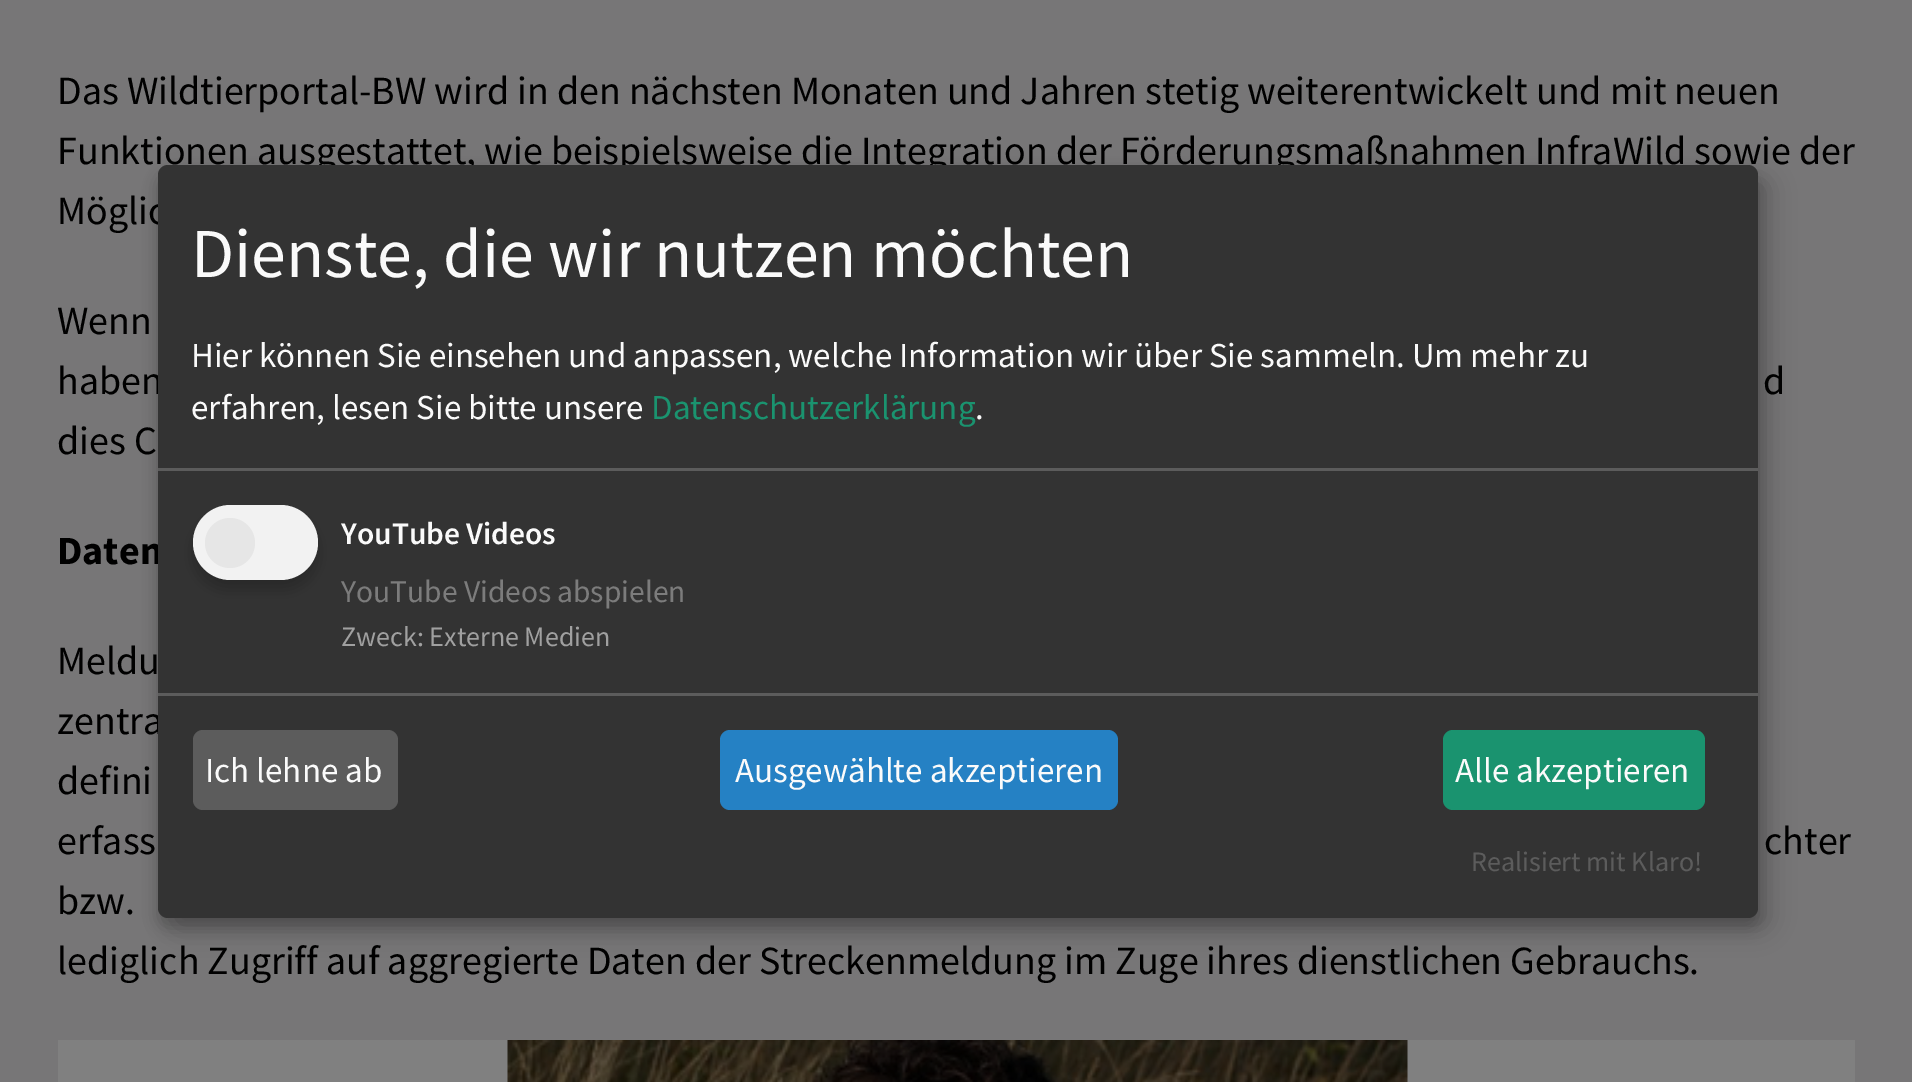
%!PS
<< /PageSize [1912 1082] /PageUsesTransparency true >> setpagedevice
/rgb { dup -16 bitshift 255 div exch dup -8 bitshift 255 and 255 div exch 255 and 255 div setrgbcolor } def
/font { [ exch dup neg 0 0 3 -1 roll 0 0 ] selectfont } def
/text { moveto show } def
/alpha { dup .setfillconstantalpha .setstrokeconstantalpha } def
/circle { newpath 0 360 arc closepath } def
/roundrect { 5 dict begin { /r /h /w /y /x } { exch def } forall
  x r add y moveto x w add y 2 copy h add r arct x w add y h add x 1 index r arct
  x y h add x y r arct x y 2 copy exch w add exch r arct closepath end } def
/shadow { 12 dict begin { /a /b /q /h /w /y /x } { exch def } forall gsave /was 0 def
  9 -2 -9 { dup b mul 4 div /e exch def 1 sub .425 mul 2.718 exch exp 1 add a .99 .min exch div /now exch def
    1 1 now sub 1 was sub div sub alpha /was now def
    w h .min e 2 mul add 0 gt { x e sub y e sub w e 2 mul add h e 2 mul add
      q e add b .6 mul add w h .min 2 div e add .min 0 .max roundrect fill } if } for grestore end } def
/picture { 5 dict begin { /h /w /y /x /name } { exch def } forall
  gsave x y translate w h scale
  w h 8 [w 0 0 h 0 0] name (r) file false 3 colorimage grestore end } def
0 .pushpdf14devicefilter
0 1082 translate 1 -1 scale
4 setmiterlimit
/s1 { /SourceSansPro-Regular 40 font 16#000000 rgb } def
/s2 { /SourceSansPro-Bold 40 font 16#000000 rgb } def
/s3 { /SourceSansPro-Regular 70 font 16#FAFAFA rgb } def
/s4 { /SourceSansPro-Regular 35 font 16#FAFAFA rgb } def
/s5 { /SourceSansPro-Regular 35 font 16#1A936F rgb } def
/s6 { /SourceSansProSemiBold-SemiBold 31.5 font 16#FAFAFA rgb } def
/s7 { /SourceSansPro-Regular 31.5 font 16#7C7C7C rgb } def
/s8 { /SourceSansPro-Regular 28 font 16#A0A0A0 rgb } def
/s9 { /SourceSansPro-Regular 28 font 16#5C5C5C rgb } def
16#777677 rgb
0 0 1912 1082 rectfill
s1
(Das Wildtierportal-BW wird in den nächsten Monaten und Jahren stetig weiterentwickelt und mit neuen) 57 104 text
(Funktionen ausgestattet, wie beispielsweise die Integration der Förderungsmaßnahmen InfraWild sowie der) 57 164 text
(Möglic) 57 224 text
gsave
58 0 1797 520 rectclip
(Wenn) 57 334 text
grestore
(haben) 57 394 text
(d) 1763 394 text
(dies C) 57 454 text
s2
(Daten) 57 564 text
s1
(Meldu) 57 674 text
(zentra) 57 734 text
(defini) 57 794 text
(erfass) 57 854 text
(chter) 1764 854 text
(bzw.) 57 914 text
(lediglich Zugriff auf aggregierte Daten der Streckenmeldung im Zuge ihres dienstlichen Gebrauchs.) 57 974 text
16#808080 rgb
58 1040 1797 42 rectfill
(pic1.raw) 507 1040 901 42 picture
16#000000 rgb
170 178 1600 752 10 12.5 0.19 shadow
158 175 1600 753 10 7.5 0.2 shadow
16#333333 rgb
158 165 1600 753 10 roundrect fill
16#5C5C5C rgb
158 468 1600 3 rectfill
s3
(Dienste, die wir nutzen möchten) 191 277 text
s4
(Hier können Sie einsehen und anpassen, welche Information wir über Sie sammeln. Um mehr zu) 191 367 text
(erfahren, lesen Sie bitte unsere) 191 419 text
s5
(Datenschutzerklärung) 651 419 text
s4
(.) 975 419 text
16#000000 rgb
193 515 125 75 37.5 7.5 0.2 shadow
16#F2F2F2 rgb
193 505 125 75 37.5 roundrect fill
16#E6E6E6 rgb
230 543 25 circle fill
s6
(YouTube Videos) 341 544 text
s7
(YouTube Videos abspielen) 341 602 text
s8
(Zweck: Externe Medien) 341 646 text
16#5C5C5C rgb
158 693 1600 3 rectfill
193 730 205 80 10 roundrect fill
s4
(Ich lehne ab) 205 782 text
16#2581C4 rgb
720 730 398 80 10 roundrect fill
s4
(Ausgewählte akzeptieren) 735 782 text
16#1A936F rgb
1443 730 262 80 10 roundrect fill
s4
(Alle akzeptieren) 1455 782 text
s9
(Realisiert mit Klaro!) 1471 871 text
.poppdf14devicefilter showpage
